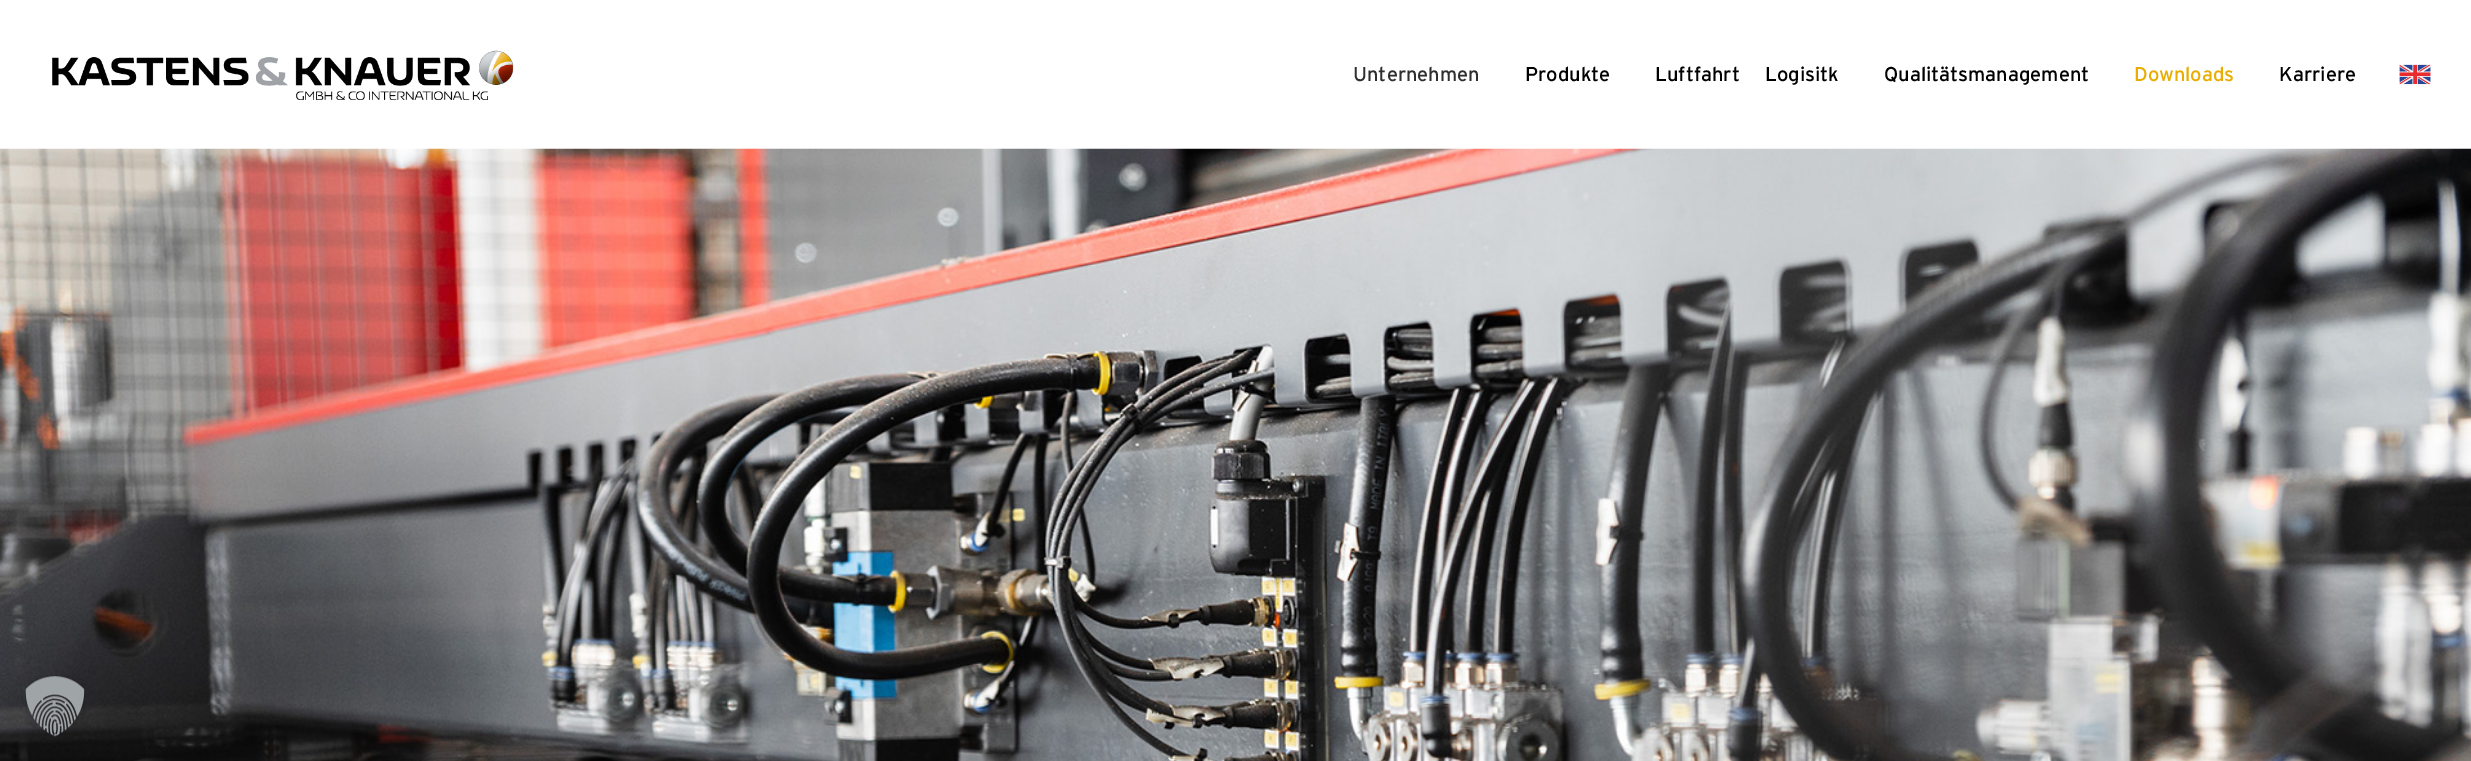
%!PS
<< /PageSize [2471 761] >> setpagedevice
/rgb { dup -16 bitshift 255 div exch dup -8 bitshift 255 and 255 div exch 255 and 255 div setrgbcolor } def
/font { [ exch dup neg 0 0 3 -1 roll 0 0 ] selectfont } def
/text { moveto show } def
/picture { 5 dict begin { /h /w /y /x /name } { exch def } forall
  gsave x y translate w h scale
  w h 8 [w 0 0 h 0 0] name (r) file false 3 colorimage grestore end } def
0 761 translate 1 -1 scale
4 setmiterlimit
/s1 { /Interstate-Regular 20 font 16#2F2F2F rgb } def
/s2 { /Interstate-Regular 20 font 16#000000 rgb } def
/s3 { /Interstate-Regular 20 font 16#E8AD00 rgb } def
16#FFFFFF rgb
0 0 2471 761 rectfill
(pic1.raw) 52 50 462 50 picture
s1
(Unternehmen) 1353 81 text
s2
(Produkte) 1525 81 text
(Luftfahrt) 1655 81 text
(Logisitk) 1765 81 text
(Qualitätsmanagement) 1884 81 text
s3
(Downloads) 2134 81 text
s2
(Karriere) 2279 81 text
(pic2.raw) 2399 64 32 21 picture
(pic3.raw) 0 148 2471 613 picture
(pic4.raw) 25 675 60 62 picture
showpage
